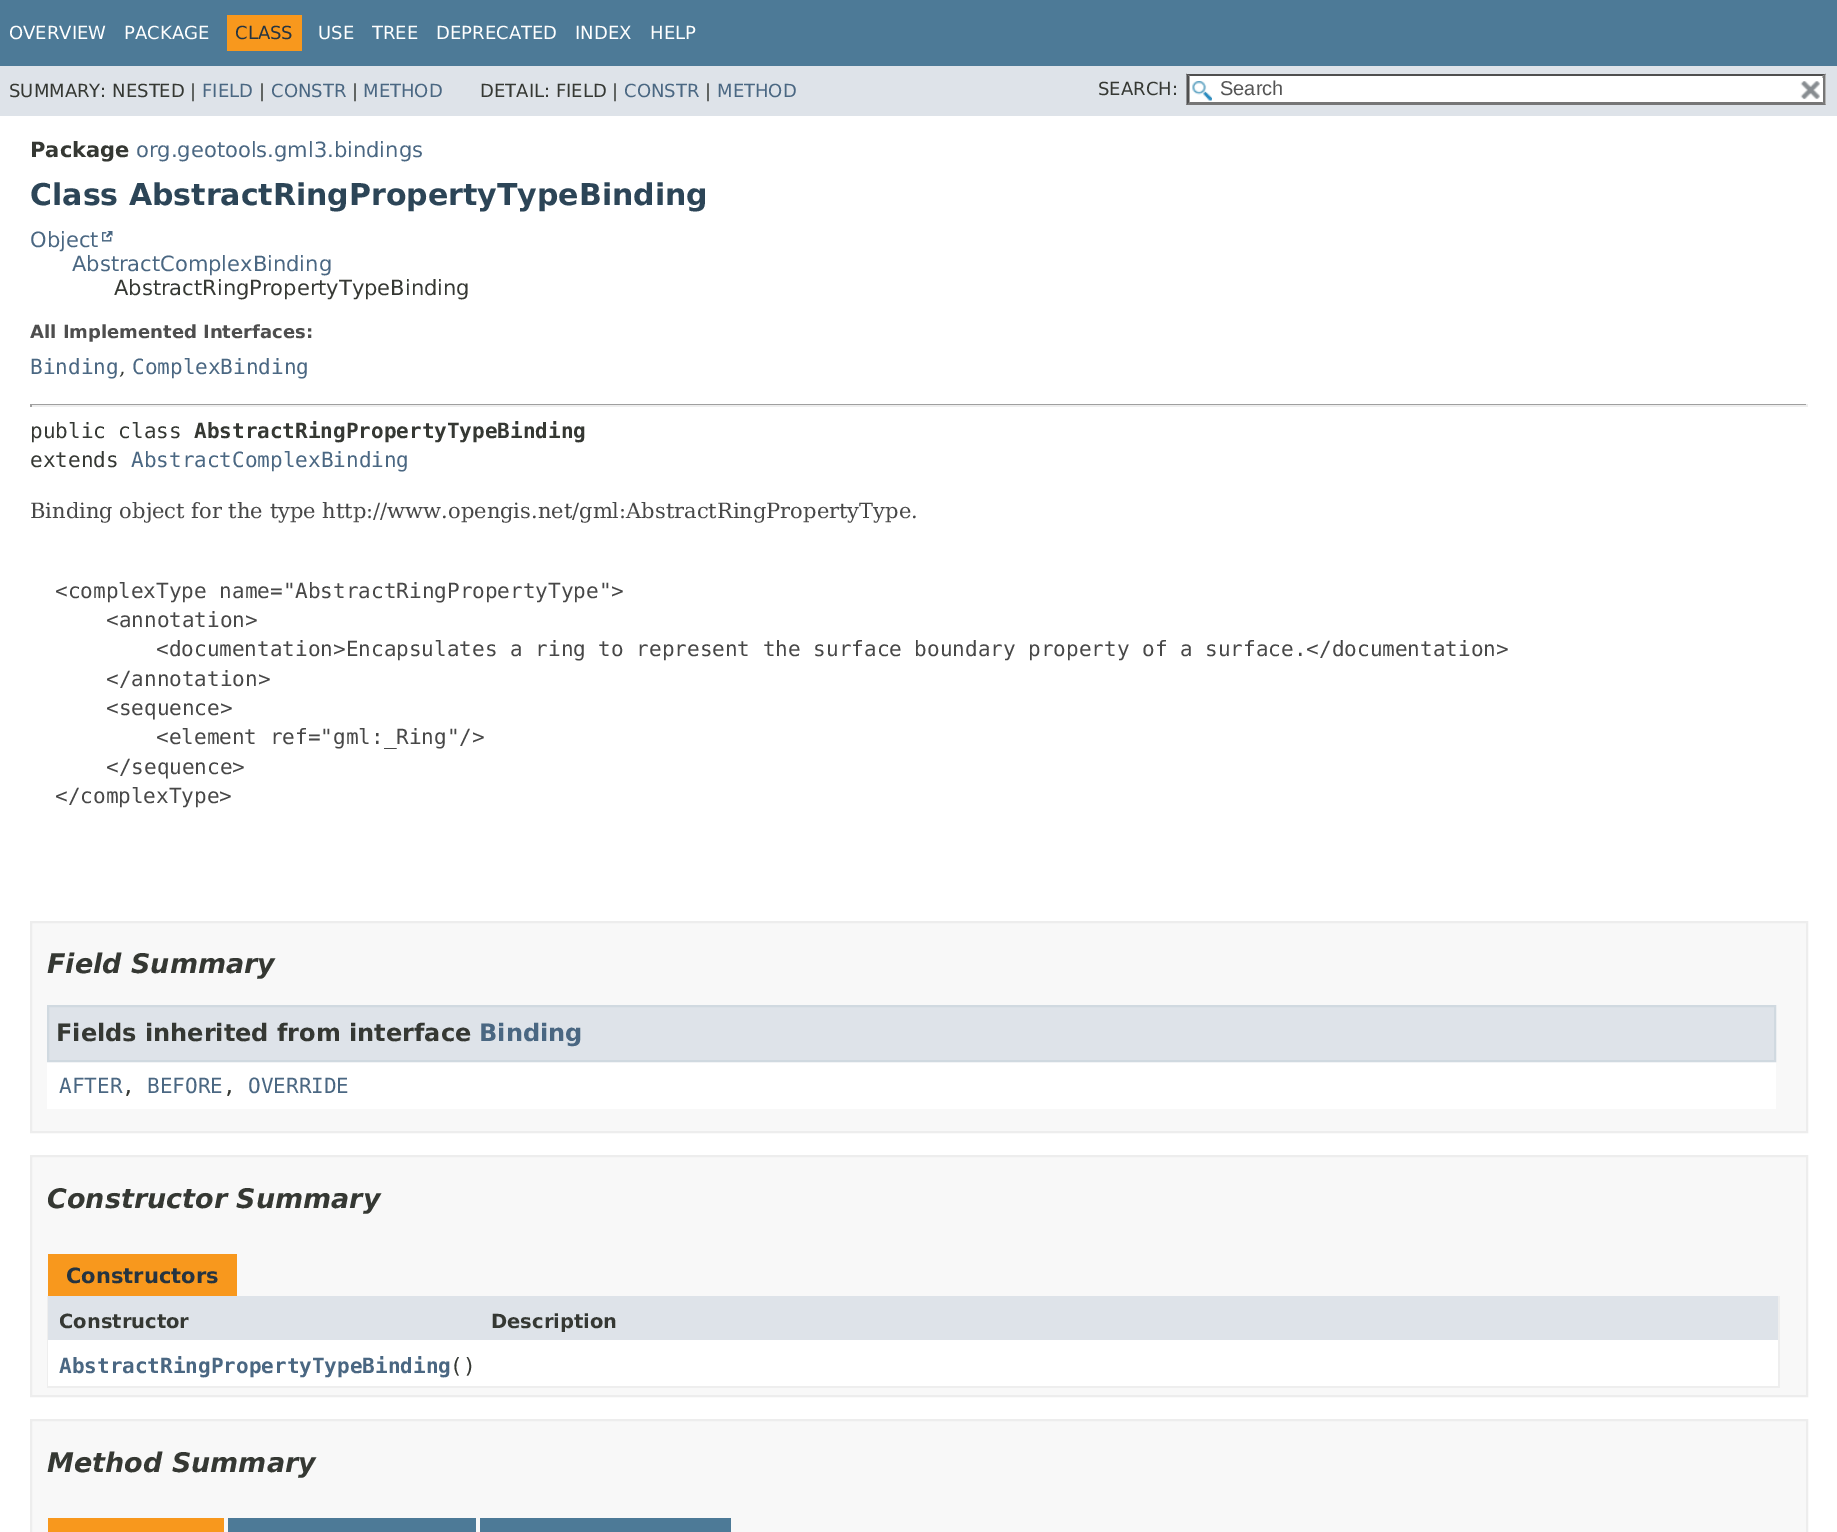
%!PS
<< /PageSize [1837 1532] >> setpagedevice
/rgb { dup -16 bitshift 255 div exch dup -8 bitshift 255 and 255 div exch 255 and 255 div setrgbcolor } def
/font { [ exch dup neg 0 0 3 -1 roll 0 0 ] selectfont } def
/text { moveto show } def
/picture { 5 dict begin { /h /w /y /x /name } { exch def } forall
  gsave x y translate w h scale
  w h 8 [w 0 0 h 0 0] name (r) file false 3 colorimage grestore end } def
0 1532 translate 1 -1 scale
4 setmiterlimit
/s1 { /DejaVuSans-Regular 18 font 16#FFFFFF rgb } def
/s2 { /DejaVuSans-Regular 18 font 16#253441 rgb } def
/s3 { /DejaVuSans-Regular 18 font 16#353833 rgb } def
/s4 { /DejaVuSans-Regular 18 font 16#4A6782 rgb } def
/s5 { /LiberationSans-Regular 20 font 16#545454 rgb } def
/s6 { /DejaVuSans-Bold 21 font 16#353833 rgb } def
/s7 { /DejaVuSans-Regular 21 font 16#4A6782 rgb } def
/s8 { /DejaVuSans-Bold 30 font 16#2C4557 rgb } def
/s9 { /DejaVuSans-Regular 21 font 16#353833 rgb } def
/s10 { /DejaVuSans-Bold 18 font 16#4E4E4E rgb } def
/s11 { /DejaVuSansMono-Regular 21 font 16#4A6782 rgb } def
/s12 { /DejaVuSerif-Regular 21 font 16#353833 rgb } def
/s13 { /DejaVuSansMono-Regular 21 font 16#353833 rgb } def
/s14 { /DejaVuSansMono-Bold 21 font 16#353833 rgb } def
/s15 { /DejaVuSerif-Regular 21 font 16#474747 rgb } def
/s16 { /DejaVuSansMono-Regular 21 font 16#474747 rgb } def
/s17 { /DejaVuSans-BoldItalic 27 font 16#353833 rgb } def
/s18 { /DejaVuSans-Bold 24 font 16#353833 rgb } def
/s19 { /DejaVuSans-Bold 24 font 16#4A6782 rgb } def
/s20 { /DejaVuSans-Bold 21 font 16#253441 rgb } def
/s21 { /DejaVuSans-Bold 19.5 font 16#353833 rgb } def
/s22 { /DejaVuSansMono-Bold 21 font 16#4A6782 rgb } def
16#FFFFFF rgb
0 0 1837 1532 rectfill
16#4D7A97 rgb
0 0 1837 66 rectfill
s1
(OVERVIEW) 9 39 text
(PACKAGE) 124 39 text
16#F8981D rgb
227 15 75 36 rectfill
s2
(CLASS) 235 39 text
s1
(USE) 318 39 text
(TREE) 372 39 text
(DEPRECATED) 436 39 text
(INDEX) 575 39 text
(HELP) 650 39 text
16#DEE3E9 rgb
0 66 1837 50 rectfill
s3
(SUMMARY: NESTED |) 9 97 text
s4
(FIELD) 202 97 text
s3
(|) 259 97 text
s4
(CONSTR) 271 97 text
s3
(|) 352 97 text
s4
(METHOD) 363 97 text
s3
(DETAIL: FIELD |) 480 97 text
s4
(CONSTR) 624 97 text
s3
(|) 705 97 text
s4
(METHOD) 717 97 text
s3
(SEARCH:) 1098 95 text
16#FFFFFF rgb
1187 74 639 31 rectfill
(pic1.raw) 1192 81 20 20 picture
16#4F4F4F rgb
1186 74 moveto 1826 74 lineto 1822 76 lineto 1190 76 lineto closepath fill
16#767676 rgb
1825.5 73.5 moveto 1825.5 105 lineto 1822.5 102 lineto 1822.5 76.5 lineto closepath fill
1826 105 moveto 1186 105 lineto 1190 102 lineto 1822 102 lineto closepath fill
16#4F4F4F rgb
1186.5 105 moveto 1186.5 73.5 lineto 1189.5 76.5 lineto 1189.5 102 lineto closepath fill
s5
(Search) 1220 95 text
16#FFFFFF rgb
1822 78 1 24 rectfill
(pic2.raw) 1800 81 20 19 picture
s6
(Package) 30 157 text
s7
(org.geotools.gml3.bindings) 136 157 text
s8
(Class AbstractRingPropertyTypeBinding) 30 205 text
s7
(Object) 30 247 text
(pic3.raw) 102 231 11 11 picture
(AbstractComplexBinding) 72 271 text
s9
(AbstractRingPropertyTypeBinding) 114 295 text
s10
(All Implemented Interfaces:) 30 338 text
s11
(Binding) 30 374 text
s12
(,) 119 374 text
s11
(ComplexBinding) 132 374 text
16#9F9F9F rgb
30 404 1778 1 rectfill
16#EEEEEE rgb
1806 404 2 3 rectfill
30 405 1778 2 rectfill
16#9F9F9F rgb
30 404 2 3 rectfill
s13
(public class) 30 438 text
s14
(AbstractRingPropertyTypeBinding) 194 438 text
s13
(extends) 30 467 text
s11
(AbstractComplexBinding) 131 467 text
s15
(Binding object for the type http://www.opengis.net/gml:AbstractRingPropertyType.) 30 518 text
s16
(<complexType name="AbstractRingPropertyType">) 55 598 text
(<annotation>) 106 627 text
(<documentation>Encapsulates a ring to represent the surface boundary property of a surface.</documentation>) 156 656 text
(</annotation>) 106 686 text
(<sequence>) 106 715 text
(<element ref="gml:_Ring"/>) 156 744 text
(</sequence>) 106 774 text
(</complexType>) 55 803 text
16#F8F8F8 rgb
31 922 moveto 1807 922 lineto 1807 1132 lineto 31 1132 lineto closepath gsave fill grestore
16#EDEDED rgb
2 setlinewidth
stroke
s17
(Field Summary) 47 973 text
16#FFFFFF rgb
47 1062 1729 47 rectfill
16#DEE3E9 rgb
48 1006 moveto 1775 1006 lineto 1775 1061 lineto 48 1061 lineto closepath gsave fill grestore
16#D0D9E0 rgb
stroke
s18
(Fields inherited from interface) 56 1041 text
s19
(Binding) 479 1041 text
s11
(AFTER) 59 1093 text
s13
(,) 122 1093 text
s11
(BEFORE) 147 1093 text
s13
(,) 223 1093 text
s11
(OVERRIDE) 248 1093 text
16#F8F8F8 rgb
31 1156 moveto 1807 1156 lineto 1807 1396 lineto 31 1396 lineto closepath gsave fill grestore
16#EDEDED rgb
stroke
s17
(Constructor Summary) 47 1208 text
16#F8981D rgb
48 1254 189 42 rectfill
s20
(Constructors) 66 1283 text
16#EEEEEE rgb
1778 1296 2 92 rectfill
47 1386 1732 2 rectfill
47 1296 2 92 rectfill
16#DEE3E9 rgb
48 1296 1730 44 rectfill
s21
(Constructor) 59 1328 text
(Description) 491 1328 text
16#FFFFFF rgb
48 1340 1730 46 rectfill
s22
(AbstractRingPropertyTypeBinding) 59 1373 text
s13
(\(\)) 450 1373 text
16#F8F8F8 rgb
31 1420 moveto 1807 1420 lineto 1807 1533 lineto 31 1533 lineto closepath gsave fill grestore
16#EDEDED rgb
stroke
s17
(Method Summary) 47 1472 text
16#F8981D rgb
48 1518 176 14 rectfill
16#4D7A97 rgb
228 1518 248 14 rectfill
480 1518 251 14 rectfill
showpage
